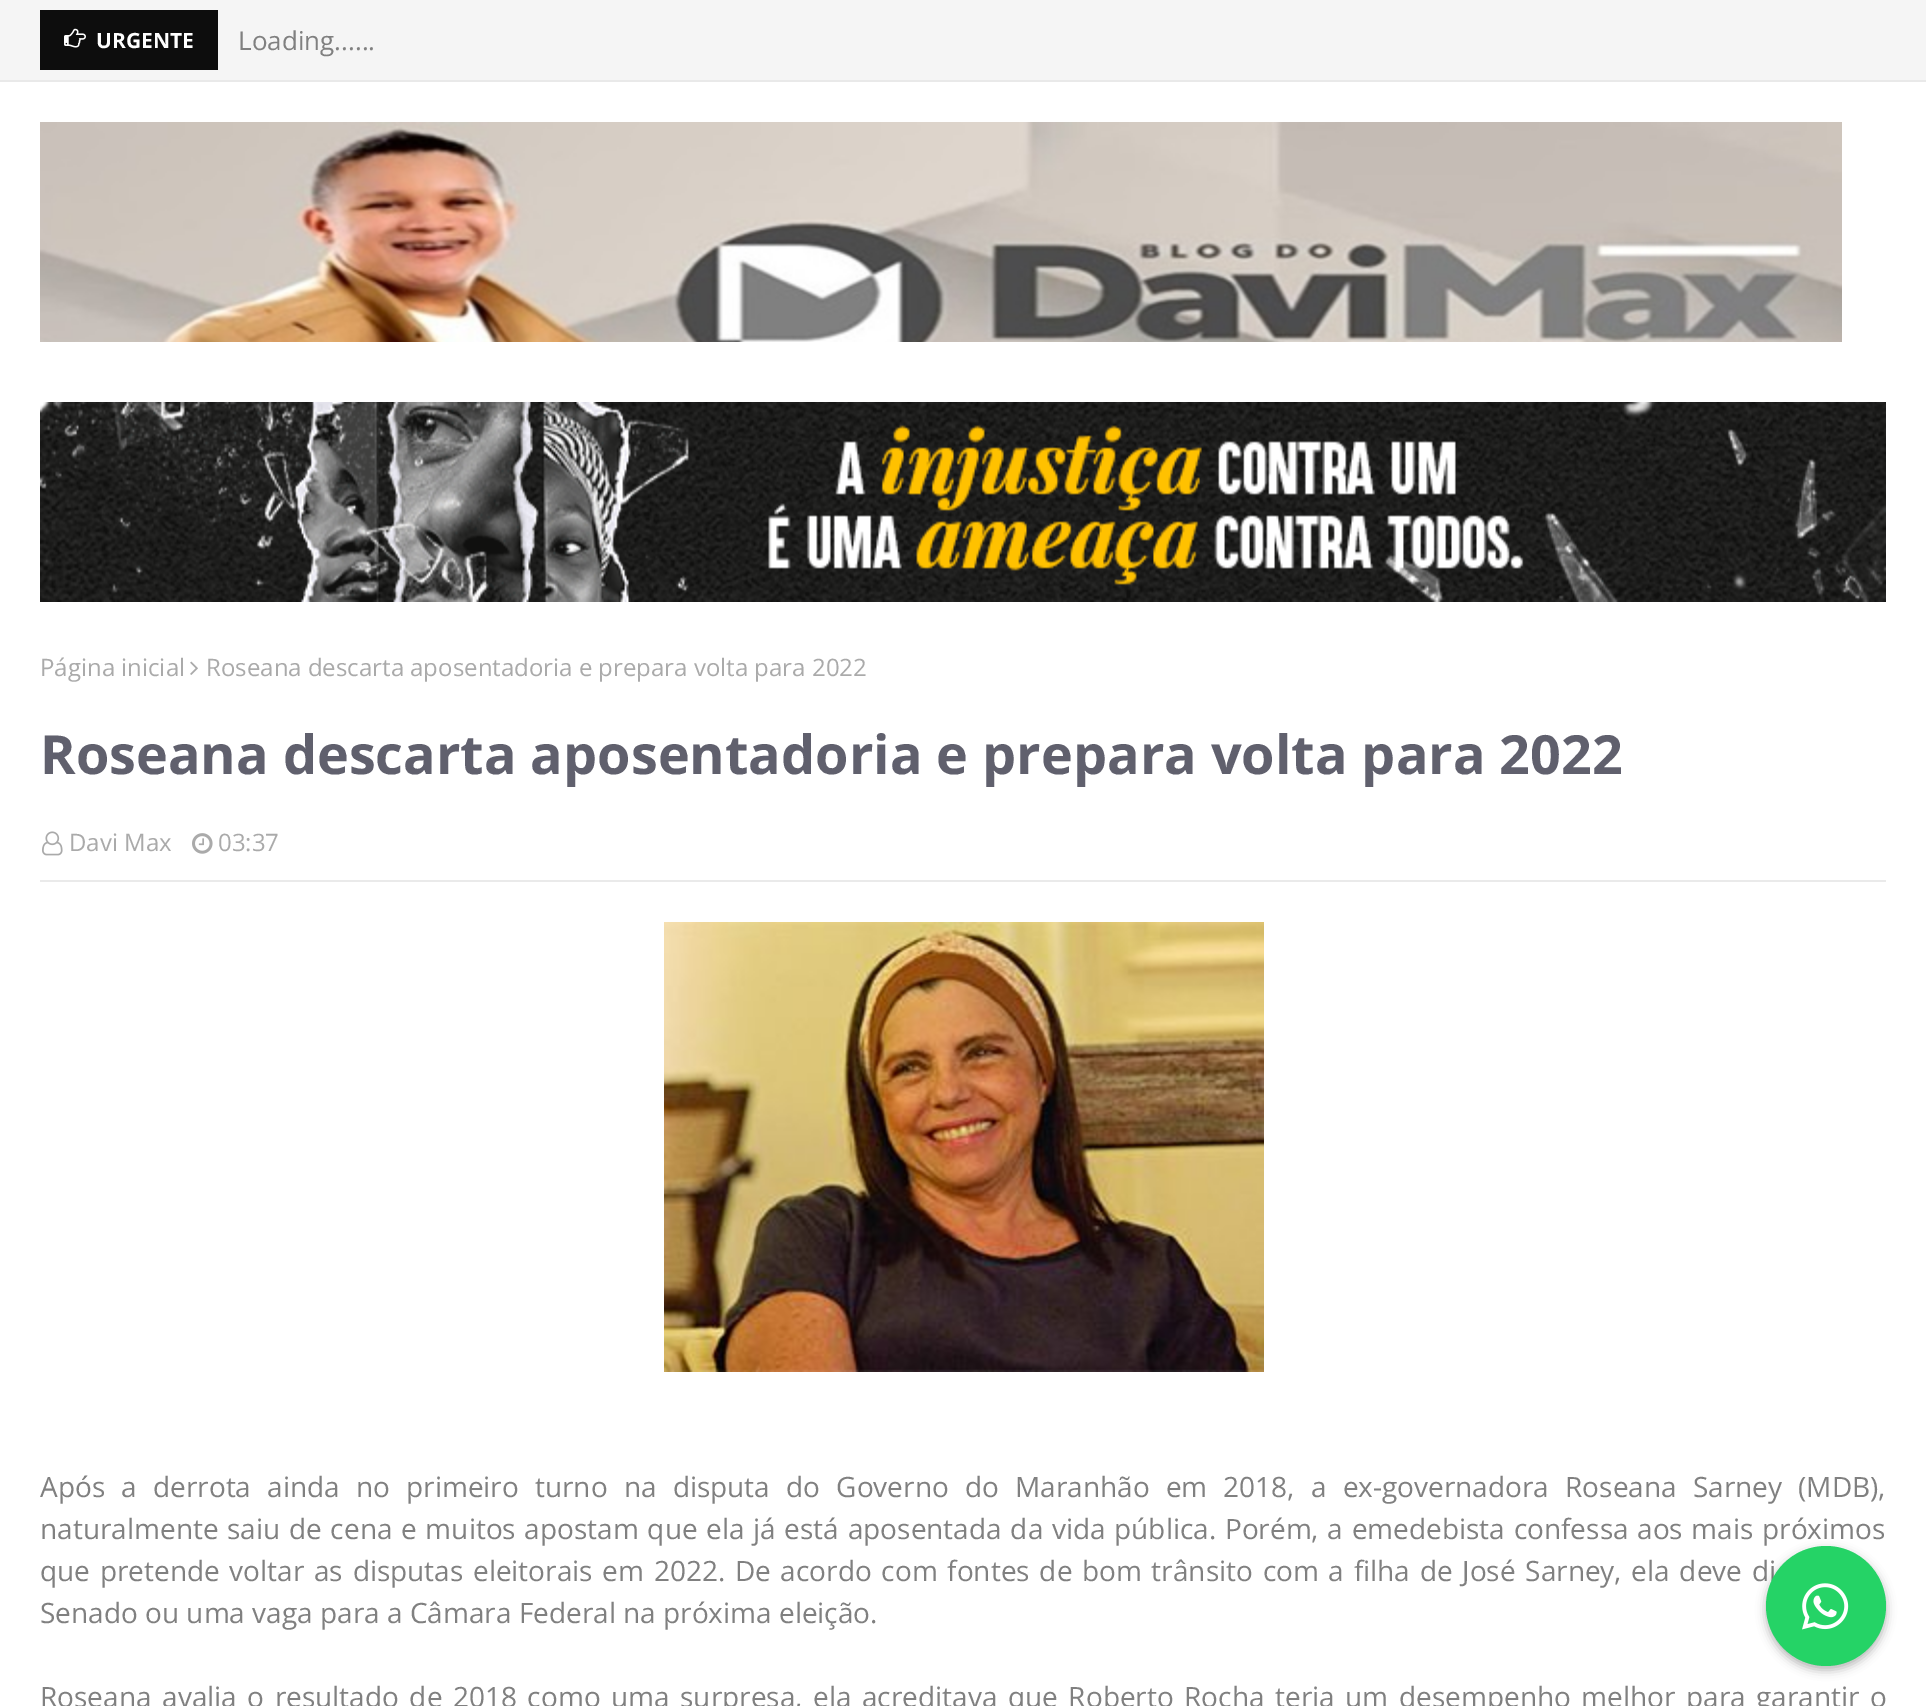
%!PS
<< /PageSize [1926 1706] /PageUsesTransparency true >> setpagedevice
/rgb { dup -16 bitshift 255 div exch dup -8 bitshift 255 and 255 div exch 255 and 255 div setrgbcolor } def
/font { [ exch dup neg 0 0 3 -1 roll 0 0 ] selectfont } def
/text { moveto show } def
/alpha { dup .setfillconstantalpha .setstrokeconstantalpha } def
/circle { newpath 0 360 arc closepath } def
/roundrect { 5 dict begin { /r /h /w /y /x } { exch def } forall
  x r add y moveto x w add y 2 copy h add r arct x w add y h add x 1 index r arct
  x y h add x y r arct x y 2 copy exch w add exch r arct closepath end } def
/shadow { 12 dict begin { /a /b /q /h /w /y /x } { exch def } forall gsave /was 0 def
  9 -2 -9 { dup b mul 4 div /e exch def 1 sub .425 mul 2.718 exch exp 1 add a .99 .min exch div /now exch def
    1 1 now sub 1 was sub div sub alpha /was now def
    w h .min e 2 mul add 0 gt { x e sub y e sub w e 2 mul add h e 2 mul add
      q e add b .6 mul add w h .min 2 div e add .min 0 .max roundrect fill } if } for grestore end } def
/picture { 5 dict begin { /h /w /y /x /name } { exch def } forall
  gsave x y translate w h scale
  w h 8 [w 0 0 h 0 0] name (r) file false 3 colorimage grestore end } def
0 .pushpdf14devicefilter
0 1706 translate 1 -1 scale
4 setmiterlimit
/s1 { /OpenSans-Bold 21 font 16#FFFFFF rgb } def
/s2 { /OpenSans-Regular 26 font 16#808080 rgb } def
/s3 { /OpenSans-Regular 24 font 16#AAAAAA rgb } def
/s4 { /OpenSans-Bold 54 font 16#60606D rgb } def
/s5 { /OpenSans-Regular 28 font 16#808080 rgb } def
16#FFFFFF rgb
0 0 1926 1706 rectfill
16#F5F5F5 rgb
0 0 1926 80 rectfill
16#E9E9E9 rgb
0 80 1926 2 rectfill
16#0D0D0D rgb
40 10 178 60 rectfill
(pic1.raw) 64 28 22 20 picture
s1
(URGENTE) 96 48 text
s2
(Loading......) 238 50 text
(pic2.raw) 40 122 1802 220 picture
(pic3.raw) 40 402 1846 200 picture
s3
(Página inicial) 40 676 text
(pic4.raw) 190 661 8 14 picture
(Roseana descarta aposentadoria e prepara volta para 2022) 206 676 text
s4
(Roseana descarta aposentadoria e prepara volta para 2022) 40 774 text
16#EAEAEA rgb
40 880 1846 2 rectfill
(pic5.raw) 42 831 21 25 picture
s3
(Davi Max) 69 851 text
(pic6.raw) 192 833 21 21 picture
(03:37) 218 851 text
(pic7.raw) 664 922 600 450 picture
/OpenSans-Regular 28 font
16#808080 rgb
40 1497 moveto 8.9 0 32 (Após a derrota ainda no primeiro turno na disputa do Governo do Maranhão em 2018, a ex-governadora Roseana Sarney \(MDB\),) widthshow
40 1539 moveto 1.4 0 32 (naturalmente saiu de cena e muitos apostam que ela já está aposentada da vida pública. Porém, a emedebista confessa aos mais próximos) widthshow
40 1581 moveto 2.4 0 32 (que pretende voltar as disputas eleitorais em 2022. De acordo com fontes de bom trânsito com a filha de José Sarney, ela deve di) widthshow
(Senado ou uma vaga para a Câmara Federal na próxima eleição.) 40 1623 text
40 1707 moveto 3.25 0 32 (Roseana avalia o resultado de 2018 como uma surpresa, ela acreditava que Roberto Rocha teria um desempenho melhor para garantir o) widthshow
16#000000 rgb
1766 1550 120 120 60 5 0.3 shadow
16#25D366 rgb
1826 1606 60 circle fill
(pic8.raw) 1802 1583 47 47 picture
.poppdf14devicefilter showpage
